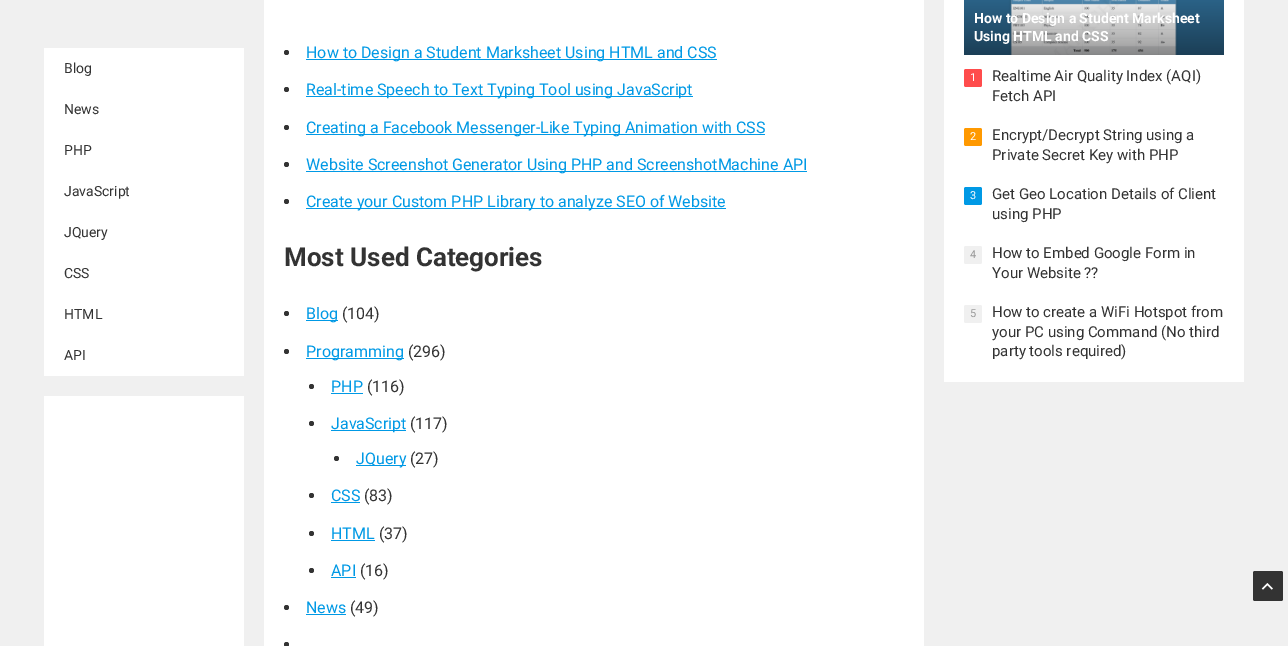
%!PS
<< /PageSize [1288 646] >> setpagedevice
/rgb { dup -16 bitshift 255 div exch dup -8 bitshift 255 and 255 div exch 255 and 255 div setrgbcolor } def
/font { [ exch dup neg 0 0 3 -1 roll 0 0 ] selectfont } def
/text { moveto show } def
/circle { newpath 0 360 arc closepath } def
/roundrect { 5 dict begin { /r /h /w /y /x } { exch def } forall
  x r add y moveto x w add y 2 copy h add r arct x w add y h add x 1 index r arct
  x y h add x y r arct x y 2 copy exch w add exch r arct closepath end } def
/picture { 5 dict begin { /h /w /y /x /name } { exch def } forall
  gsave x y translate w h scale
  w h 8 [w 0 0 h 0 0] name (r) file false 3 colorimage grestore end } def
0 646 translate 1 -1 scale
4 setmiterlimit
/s1 { /Roboto-Regular 14 font 16#333333 rgb } def
/s2 { /Roboto-Regular 16 font 16#0099E5 rgb } def
/s3 { /Roboto-Bold 26 font 16#333333 rgb } def
/s4 { /Roboto-Regular 16 font 16#333333 rgb } def
/s5 { /Roboto-Bold 14 font 16#FFFFFF rgb } def
/s6 { /Roboto-Regular 11 font 16#FFFFFF rgb } def
/s7 { /Roboto-Regular 15 font 16#333333 rgb } def
/s8 { /Roboto-Regular 11 font 16#999999 rgb } def
16#F0F0F0 rgb
0 0 1288 646 rectfill
16#FFFFFF rgb
44 48 200 328 rectfill
s1
(Blog) 64 73 text
(News) 64 114 text
(PHP) 64 155 text
(JavaScript) 64 196 text
(JQuery) 64 237 text
(CSS) 64 278 text
(HTML) 64 319 text
(API) 64 360 text
16#FFFFFF rgb
44 396 200 250 rectfill
264 0 660 646 rectfill
16#333333 rgb
286.5 52.5 2.5 circle fill
16#0099E5 rgb
306 59 411 1 rectfill
s2
(How to Design a Student Marksheet Using HTML and CSS) 306 58 text
16#333333 rgb
286.5 89.5 2.5 circle fill
16#0099E5 rgb
306 96 387 1 rectfill
(Real-time Speech to Text Typing Tool using JavaScript) 306 95 text
16#333333 rgb
286.5 127.5 2.5 circle fill
16#0099E5 rgb
306 134 459 1 rectfill
(Creating a Facebook Messenger-Like Typing Animation with CSS) 306 133 text
16#333333 rgb
286.5 164.5 2.5 circle fill
16#0099E5 rgb
306 171 501 1 rectfill
(Website Screenshot Generator Using PHP and ScreenshotMachine API) 306 170 text
16#333333 rgb
286.5 201.5 2.5 circle fill
16#0099E5 rgb
306 208 420 1 rectfill
(Create your Custom PHP Library to analyze SEO of Website) 306 207 text
s3
(Most Used Categories) 284 266 text
286.5 313.5 2.5 circle fill
16#0099E5 rgb
306 320 32 1 rectfill
s2
(Blog) 306 319 text
s4
(\(104\)) 342 319 text
286.5 351.5 2.5 circle fill
16#0099E5 rgb
306 358 98 1 rectfill
(Programming) 306 357 text
s4
(\(296\)) 408 357 text
311.5 386.5 2.5 circle fill
s2
(PHP) 331 392 text
331 393 32 1 rectfill
s4
(\(116\)) 367 392 text
311.5 423.5 2.5 circle fill
16#0099E5 rgb
331 430 75 1 rectfill
(JavaScript) 331 429 text
s4
(\(117\)) 410 429 text
336.5 458.5 2.5 circle fill
16#0099E5 rgb
356 465 50 1 rectfill
(JQuery) 356 464 text
s4
(\(27\)) 410 464 text
311.5 495.5 2.5 circle fill
s2
(CSS) 331 501 text
331 502 29 1 rectfill
s4
(\(83\)) 364 501 text
311.5 533.5 2.5 circle fill
s2
(HTML) 331 539 text
331 540 44 1 rectfill
s4
(\(37\)) 379 539 text
311.5 570.5 2.5 circle fill
s2
(API) 331 576 text
331 577 25 1 rectfill
s4
(\(16\)) 360 576 text
286.5 607.5 2.5 circle fill
s2
(News) 306 613 text
306 614 40 1 rectfill
s4
(\(49\)) 350 613 text
286.5 644.5 2.5 circle fill
16#FFFFFF rgb
944 0 300 382 rectfill
(pic1.raw) 964 0 260 55 picture
s5
(How to Design a Student Marksheet) 974 23 text
(Using HTML and CSS) 974 41 text
16#FF4C4C rgb
964 69 18 18 2 roundrect fill
s6
(1) 970 81 text
s7
(Realtime Air Quality Index \(AQI\)) 992 81 text
(Fetch API) 992 101 text
16#FF9900 rgb
964 128 18 18 2 roundrect fill
s6
(2) 970 140 text
s7
(Encrypt/Decrypt String using a) 992 140 text
(Private Secret Key with PHP) 992 160 text
16#0099E5 rgb
964 187 18 18 2 roundrect fill
s6
(3) 970 199 text
s7
(Get Geo Location Details of Client) 992 199 text
(using PHP) 992 219 text
16#F0F0F0 rgb
964 246 18 18 2 roundrect fill
s8
(4) 970 258 text
s7
(How to Embed Google Form in) 992 258 text
(Your Website ??) 992 278 text
16#F0F0F0 rgb
964 305 18 18 2 roundrect fill
s8
(5) 970 317 text
s7
(How to create a WiFi Hotspot from) 992 317 text
(your PC using Command \(No third) 992 337 text
(party tools required\)) 992 356 text
1253 571 30 30 2 roundrect fill
(pic2.raw) 1261 583 12 7 picture
showpage
